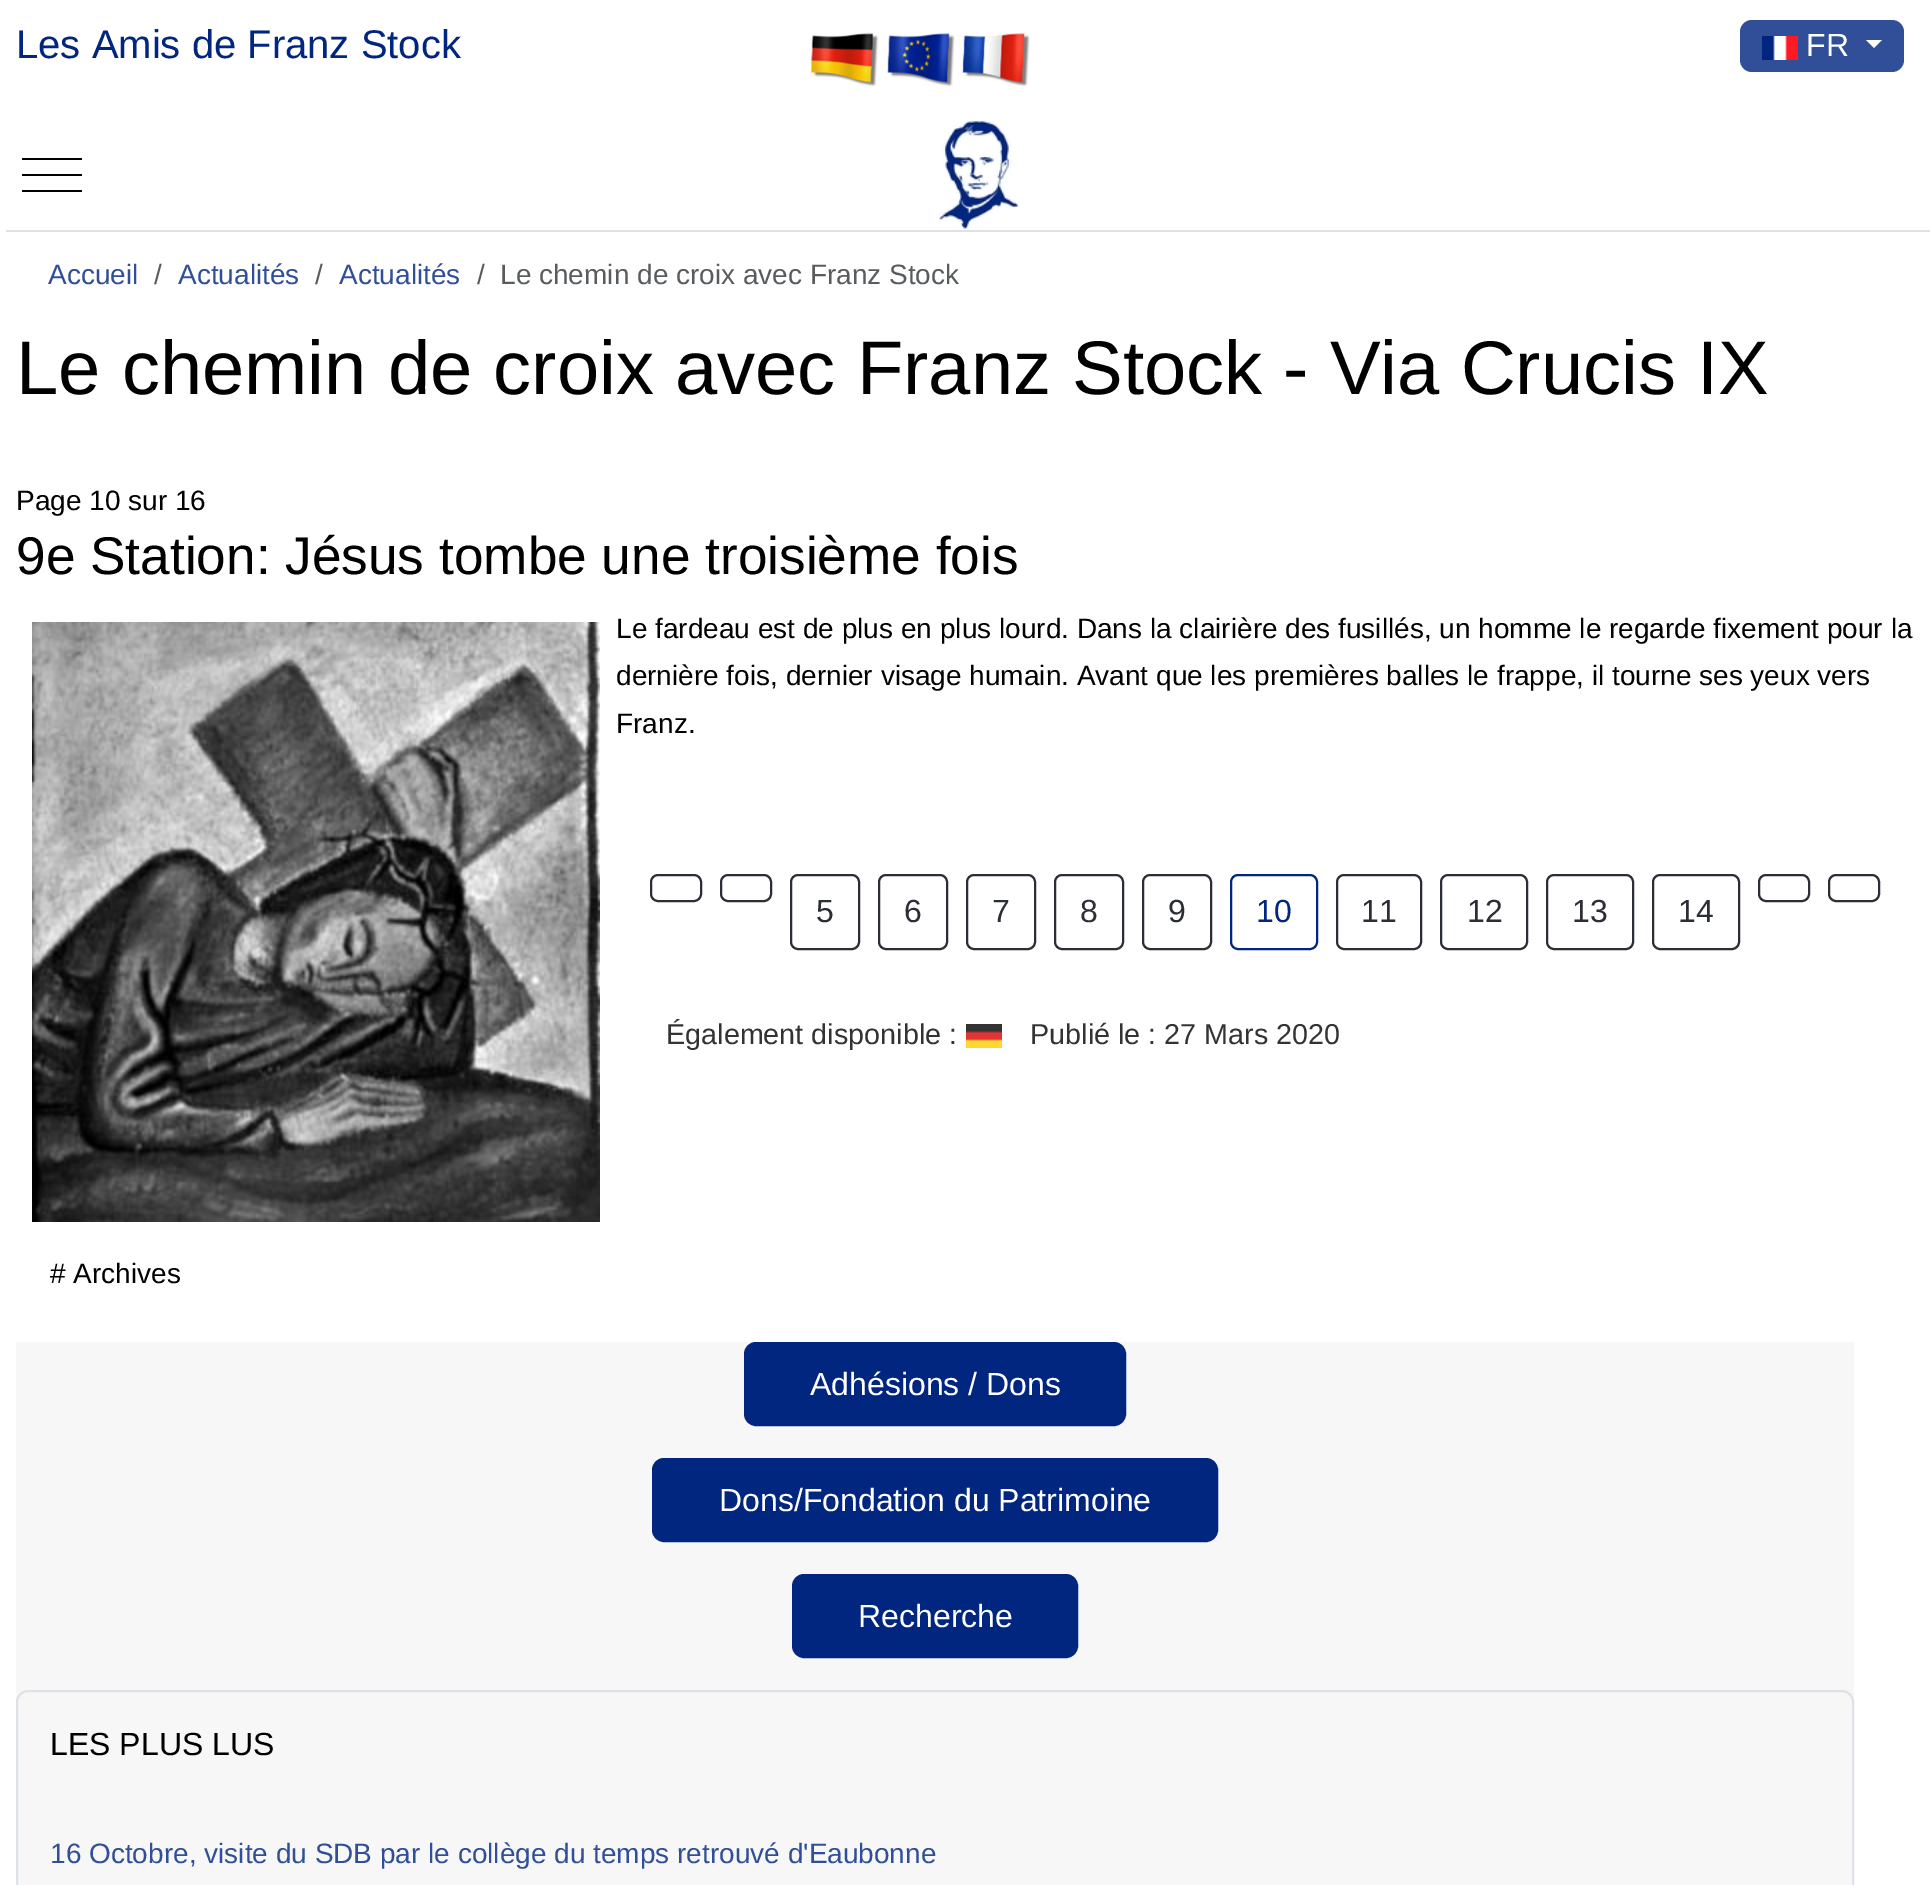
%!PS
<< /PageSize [1930 1885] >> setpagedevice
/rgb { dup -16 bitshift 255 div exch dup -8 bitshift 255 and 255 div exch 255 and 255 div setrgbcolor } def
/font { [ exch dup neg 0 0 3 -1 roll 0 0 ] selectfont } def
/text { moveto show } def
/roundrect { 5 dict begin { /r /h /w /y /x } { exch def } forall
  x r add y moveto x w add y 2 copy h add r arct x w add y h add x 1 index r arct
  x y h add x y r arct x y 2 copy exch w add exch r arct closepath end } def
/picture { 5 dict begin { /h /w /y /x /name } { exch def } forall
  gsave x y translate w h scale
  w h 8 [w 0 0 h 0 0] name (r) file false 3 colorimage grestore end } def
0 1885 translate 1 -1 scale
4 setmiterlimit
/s1 { /LiberationSans-Regular 40 font 16#002680 rgb } def
/s2 { /LiberationSans-Regular 32 font 16#FFFFFF rgb } def
/s3 { /LiberationSans-Regular 28 font 16#304F98 rgb } def
/s4 { /LiberationSans-Regular 28 font 16#595C5F rgb } def
/s5 { /LiberationSans-Regular 76 font 16#000000 rgb } def
/s6 { /LiberationSans-Regular 28 font 16#000000 rgb } def
/s7 { /LiberationSans-Regular 53.2 font 16#000000 rgb } def
/s8 { /LiberationSans-Regular 32 font 16#2C2E36 rgb } def
/s9 { /LiberationSans-Regular 32 font 16#002680 rgb } def
/s10 { /LiberationSans-Regular 28.75 font 16#333333 rgb } def
/s11 { /LiberationSans-Regular 32 font 16#000000 rgb } def
16#FFFFFF rgb
0 0 1930 1885 rectfill
s1
(Les Amis de Franz Stock) 16 58 text
(pic1.raw) 809 31 222 57 picture
16#304F98 rgb
1740 20 164 52 12 roundrect fill
(pic2.raw) 1762 36 36 24 picture
s2
(FR) 1806 56 text
1866 40 moveto 1882 40 lineto 1874 48 lineto closepath fill
16#DEE2E6 rgb
6 230 1924 2 rectfill
16#000000 rgb
22 174 60 2 rectfill
22 158 60 2 rectfill
22 190 60 2 rectfill
(pic3.raw) 939 120 80 109 picture
s3
(Accueil) 48 284 text
s4
(/) 154 284 text
s3
(Actualités) 178 284 text
s4
(/) 315 284 text
s3
(Actualités) 339 284 text
s4
(/) 477 284 text
(Le chemin de croix avec Franz Stock) 500 284 text
s5
(Le chemin de croix avec Franz Stock - Via Crucis IX) 16 394 text
s6
(Page 10 sur 16) 16 510 text
s7
(9e Station: Jésus tombe une troisième fois) 16 574 text
(pic4.raw) 32 622 568 600 picture
s6
(Le fardeau est de plus en plus lourd. Dans la clairière des fusillés, un homme le regarde fixement pour la) 616 638 text
(dernière fois, dernier visage humain. Avant que les premières balles le frappe, il tourne ses yeux vers) 616 685 text
(Franz.) 616 733 text
16#2C2E36 rgb
2 setlinewidth
651 875 50 26 7 roundrect stroke
721 875 50 26 7 roundrect stroke
1759 875 50 26 7 roundrect stroke
1829 875 50 26 7 roundrect stroke
791 875 68 74 7 roundrect stroke
s8
(5) 816 922 text
879 875 68 74 7 roundrect stroke
(6) 904 922 text
967 875 68 74 7 roundrect stroke
(7) 992 922 text
1055 875 68 74 7 roundrect stroke
(8) 1080 922 text
1143 875 68 74 7 roundrect stroke
(9) 1168 922 text
16#002680 rgb
1231 875 86 74 7 roundrect stroke
(10) 1256 922 text
16#2C2E36 rgb
1337 875 84 74 7 roundrect stroke
(11) 1361 922 text
1441 875 86 74 7 roundrect stroke
(12) 1467 922 text
1547 875 86 74 7 roundrect stroke
(13) 1572 922 text
1653 875 86 74 7 roundrect stroke
(14) 1678 922 text
s10
(Également disponible :) 666 1044 text
(pic5.raw) 966 1024 36 24 picture
(Publié le : 27 Mars 2020) 1030 1044 text
s6
(# Archives) 50 1283 text
16#F7F7F7 rgb
16 1342 1838 543 rectfill
16#002680 rgb
745 1343 380 82 11 roundrect gsave fill grestore
stroke
s2
(Adhésions / Dons) 810 1395 text
16#002680 rgb
653 1459 564 82 11 roundrect gsave fill grestore
stroke
s2
(Dons/Fondation du Patrimoine) 719 1511 text
16#002680 rgb
793 1575 284 82 11 roundrect gsave fill grestore
stroke
s2
(Recherche) 858 1627 text
16#DEE2E6 rgb
17 1691 1836 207 11 roundrect stroke
s11
(LES PLUS LUS) 50 1755 text
s3
(16 Octobre, visite du SDB par le collège du temps retrouvé d'Eaubonne) 50 1863 text
showpage
